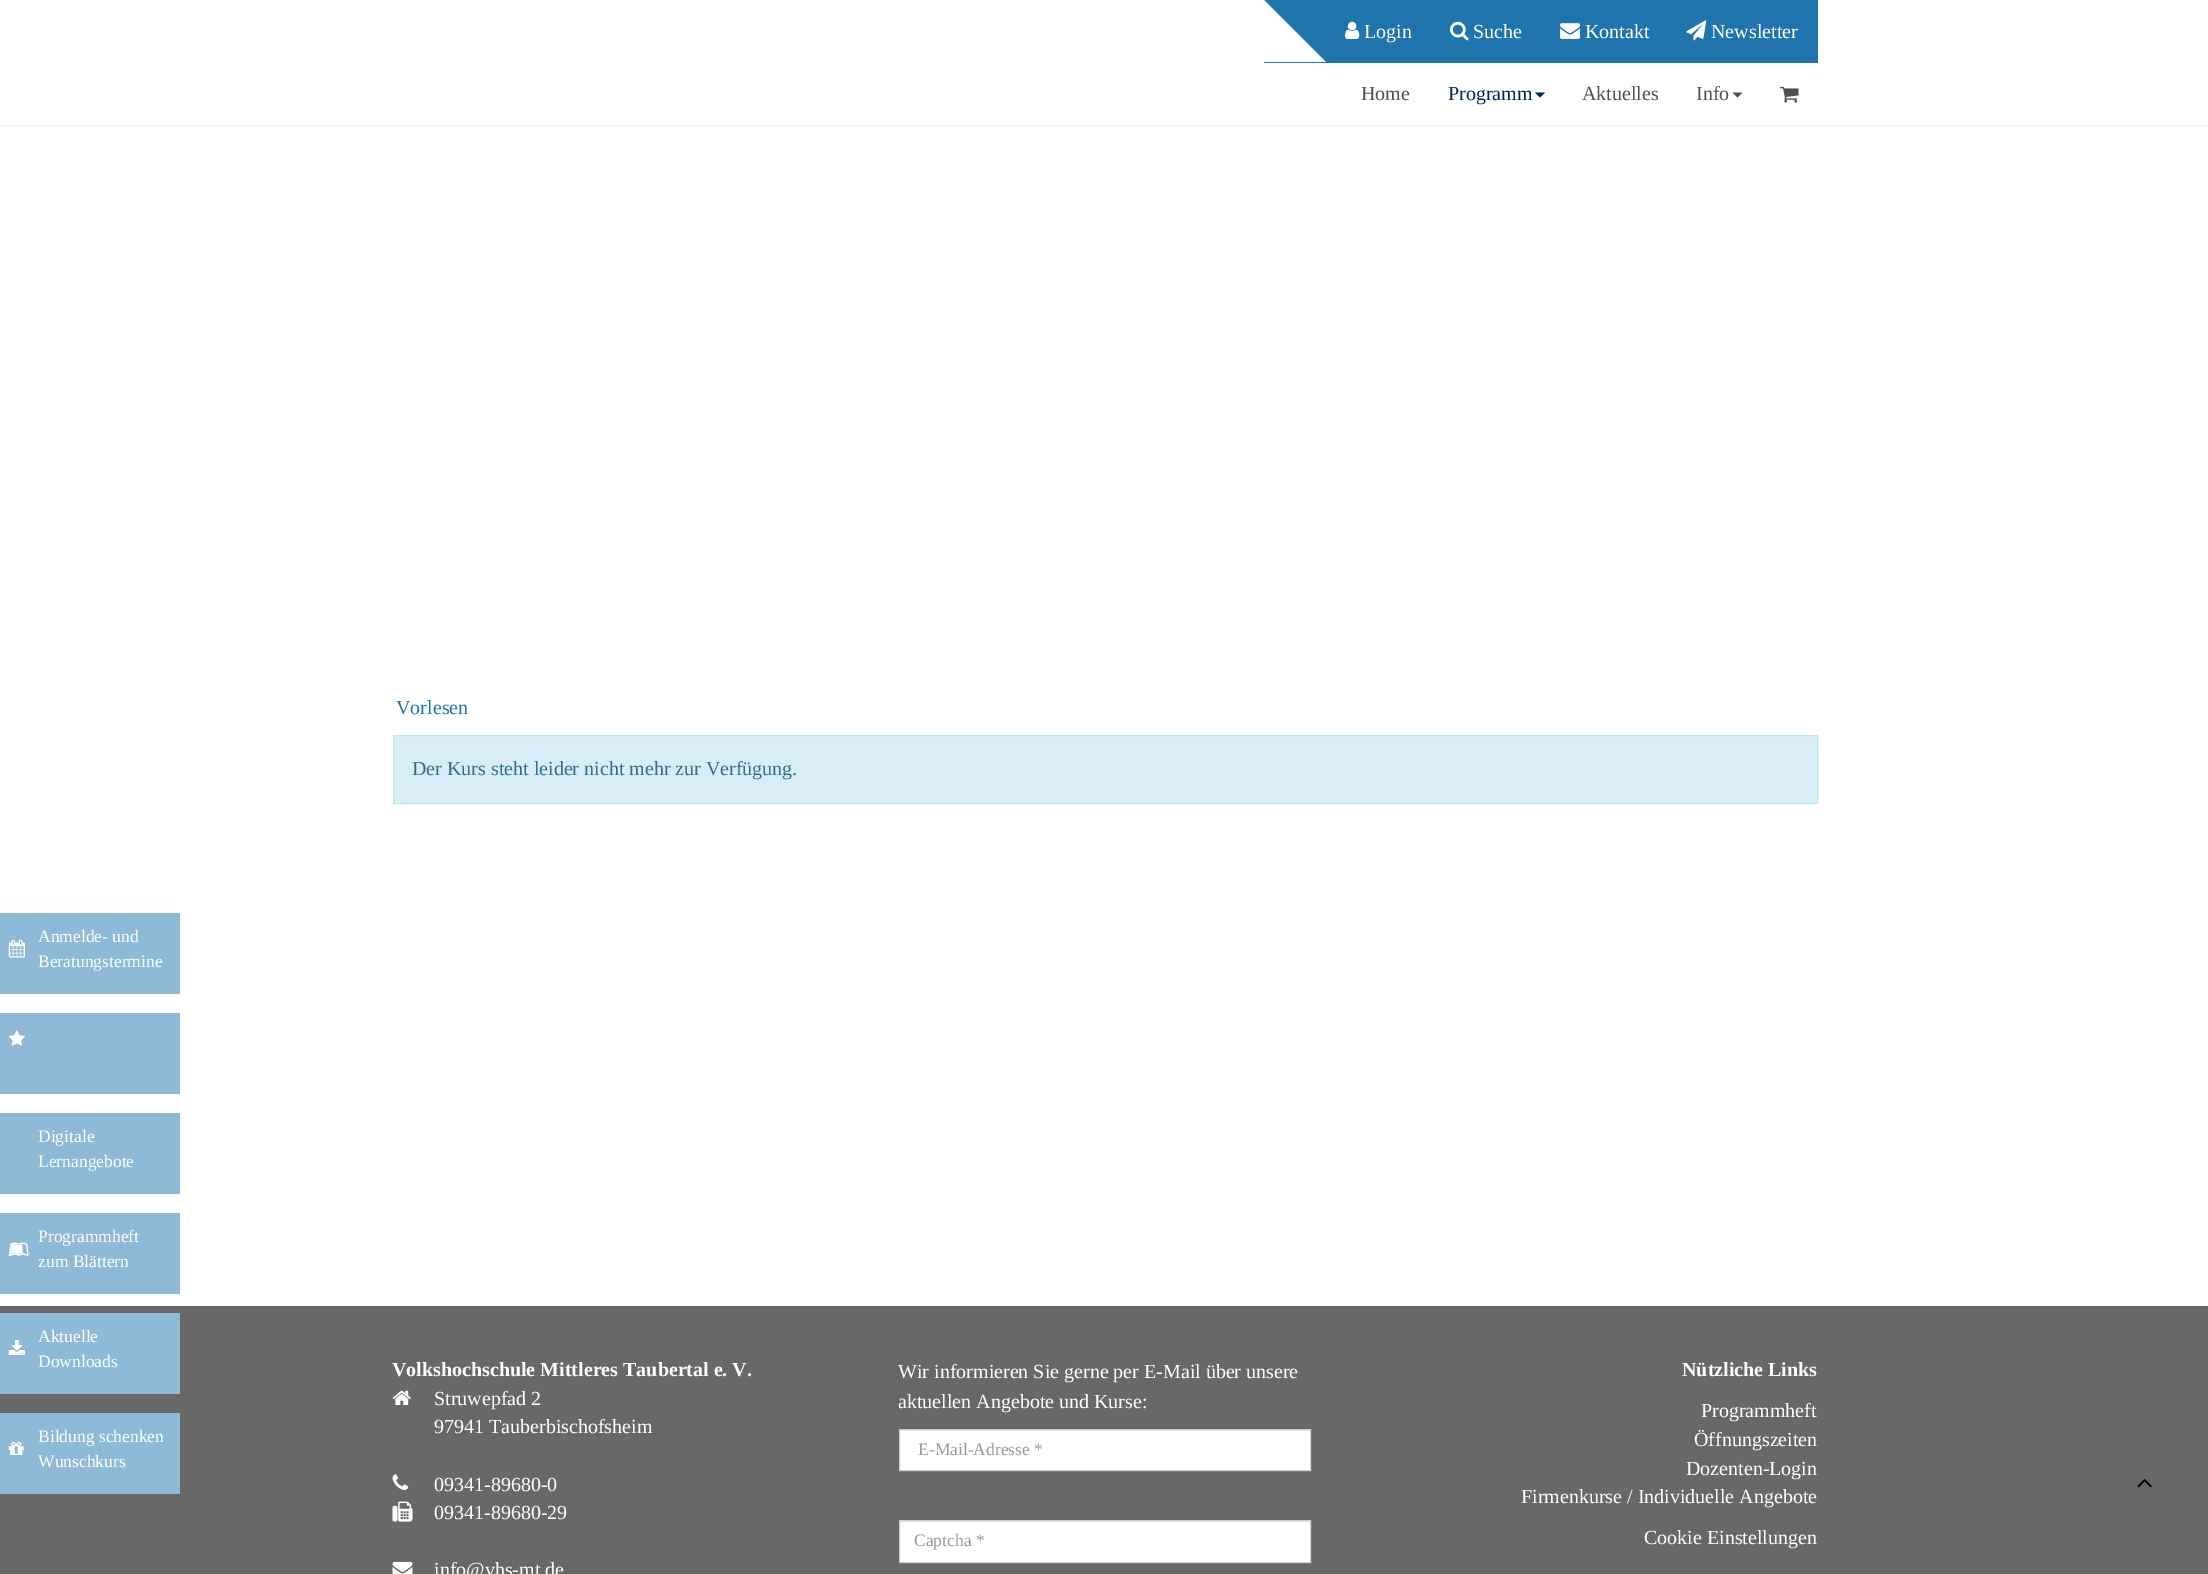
%!PS
<< /PageSize [2208 1574] >> setpagedevice
/rgb { dup -16 bitshift 255 div exch dup -8 bitshift 255 and 255 div exch 255 and 255 div setrgbcolor } def
/font { [ exch dup neg 0 0 3 -1 roll 0 0 ] selectfont } def
/text { moveto show } def
/picture { 5 dict begin { /h /w /y /x /name } { exch def } forall
  gsave x y translate w h scale
  w h 8 [w 0 0 h 0 0] name (r) file false 3 colorimage grestore end } def
0 1574 translate 1 -1 scale
4 setmiterlimit
/s1 { /LiberationSerif-Regular 20 font 16#FFFFFF rgb } def
/s2 { /LiberationSerif-Regular 20 font 16#505050 rgb } def
/s3 { /LiberationSerif-Regular 20 font 16#00285A rgb } def
/s4 { /LiberationSerif-Regular 20 font 16#1F74AE rgb } def
/s5 { /LiberationSerif-Regular 20 font 16#31708F rgb } def
/s6 { /LiberationSerif-Regular 17.5 font 16#FFFFFF rgb } def
/s7 { /LiberationSerif-Bold 20 font 16#FFFFFF rgb } def
/s8 { /LiberationSerif-Regular 17.5 font 16#999999 rgb } def
16#FFFFFF rgb
0 0 2208 1574 rectfill
16#F0F0F0 rgb
0 125 2208 1 rectfill
16#1F74AE rgb
1264 0 554 63 rectfill
16#FFFFFF rgb
1326 62 moveto 1264 62 lineto 1264 0 lineto closepath fill
(pic1.raw) 1345 21 15 18 picture
s1
(Login) 1364 38 text
(pic2.raw) 1450 21 19 20 picture
(Suche) 1473 38 text
(pic3.raw) 1560 23 20 16 picture
(Kontakt) 1585 38 text
(pic4.raw) 1686 20 21 21 picture
(Newsletter) 1711 38 text
s2
(Home) 1361 100 text
s3
(Programm) 1448 100 text
1535 92.5 moveto 1545 92.5 lineto 1540 97.5 lineto closepath fill
s2
(Aktuelles) 1582 100 text
(Info) 1696 100 text
1732.5 92.5 moveto 1742.5 92.5 lineto 1737.5 97.5 lineto closepath fill
(pic5.raw) 1780 86 19 17 picture
s4
(Vorlesen) 396 714 text
16#D9EDF7 rgb
393.5 735.5 moveto 1817.5 735.5 lineto 1817.5 803.5 lineto 393.5 803.5 lineto closepath gsave fill grestore
16#BCE8F1 rgb
stroke
s5
(Der Kurs steht leider nicht mehr zur Verfügung.) 412 775 text
16#8FBAD7 rgb
0 913 180 81 rectfill
s6
(Anmelde- und) 38 942 text
(pic6.raw) 8 940 17 18 picture
(Beratungstermine) 38 967 text
16#8FBAD7 rgb
0 1013 180 81 rectfill
(pic7.raw) 8 1030 17 16 picture
0 1113 180 81 rectfill
s6
(Digitale) 38 1142 text
(Lernangebote) 38 1167 text
16#8FBAD7 rgb
0 1213 180 81 rectfill
s6
(Programmheft) 38 1242 text
(pic8.raw) 8 1242 21 15 picture
(zum Blättern) 38 1267 text
16#686868 rgb
0 1306 2208 268 rectfill
16#8FBAD7 rgb
0 1313 180 81 rectfill
s6
(Aktuelle) 38 1342 text
(pic9.raw) 8 1340 17 15 picture
(Downloads) 38 1367 text
16#8FBAD7 rgb
0 1413 180 81 rectfill
s6
(Bildung schenken) 38 1442 text
(pic10.raw) 8 1441 16 14 picture
(Wunschkurs) 38 1467 text
s7
(Volkshochschule Mittleres Taubertal e. V.) 392 1376 text
(pic11.raw) 392 1390 19 15 picture
s1
(Struwepfad 2) 434 1405 text
(97941 Tauberbischofsheim) 434 1433 text
(pic12.raw) 392 1474 17 16 picture
(09341-89680-0) 434 1491 text
(pic13.raw) 392 1501 21 21 picture
(09341-89680-29) 434 1519 text
(pic14.raw) 392 1561 21 13 picture
(info@vhs-mt.de) 434 1576 text
(Wir informieren Sie gerne per E-Mail über unsere) 898 1378 text
(aktuellen Angebote und Kurse:) 898 1408 text
900 1431 410 39 rectfill
16#ECECEC rgb
900 1430 410 1 rectfill
16#CCCCCC rgb
899.5 1429.5 411 41 rectstroke
s8
(E-Mail-Adresse *) 918 1455 text
16#FFFFFF rgb
900 1522 410 40 rectfill
16#ECECEC rgb
900 1521 410 1 rectfill
16#CCCCCC rgb
899.5 1520.5 411 42 rectstroke
s8
(Captcha *) 914 1546 text
s7
(Nützliche Links) 1682 1376 text
s1
(Programmheft) 1701 1417 text
(Öffnungszeiten) 1694 1446 text
(Dozenten-Login) 1686 1475 text
(Firmenkurse / Individuelle Angebote) 1521 1503 text
(Cookie Einstellungen) 1644 1544 text
(pic15.raw) 2137 1479 15 9 picture
showpage
